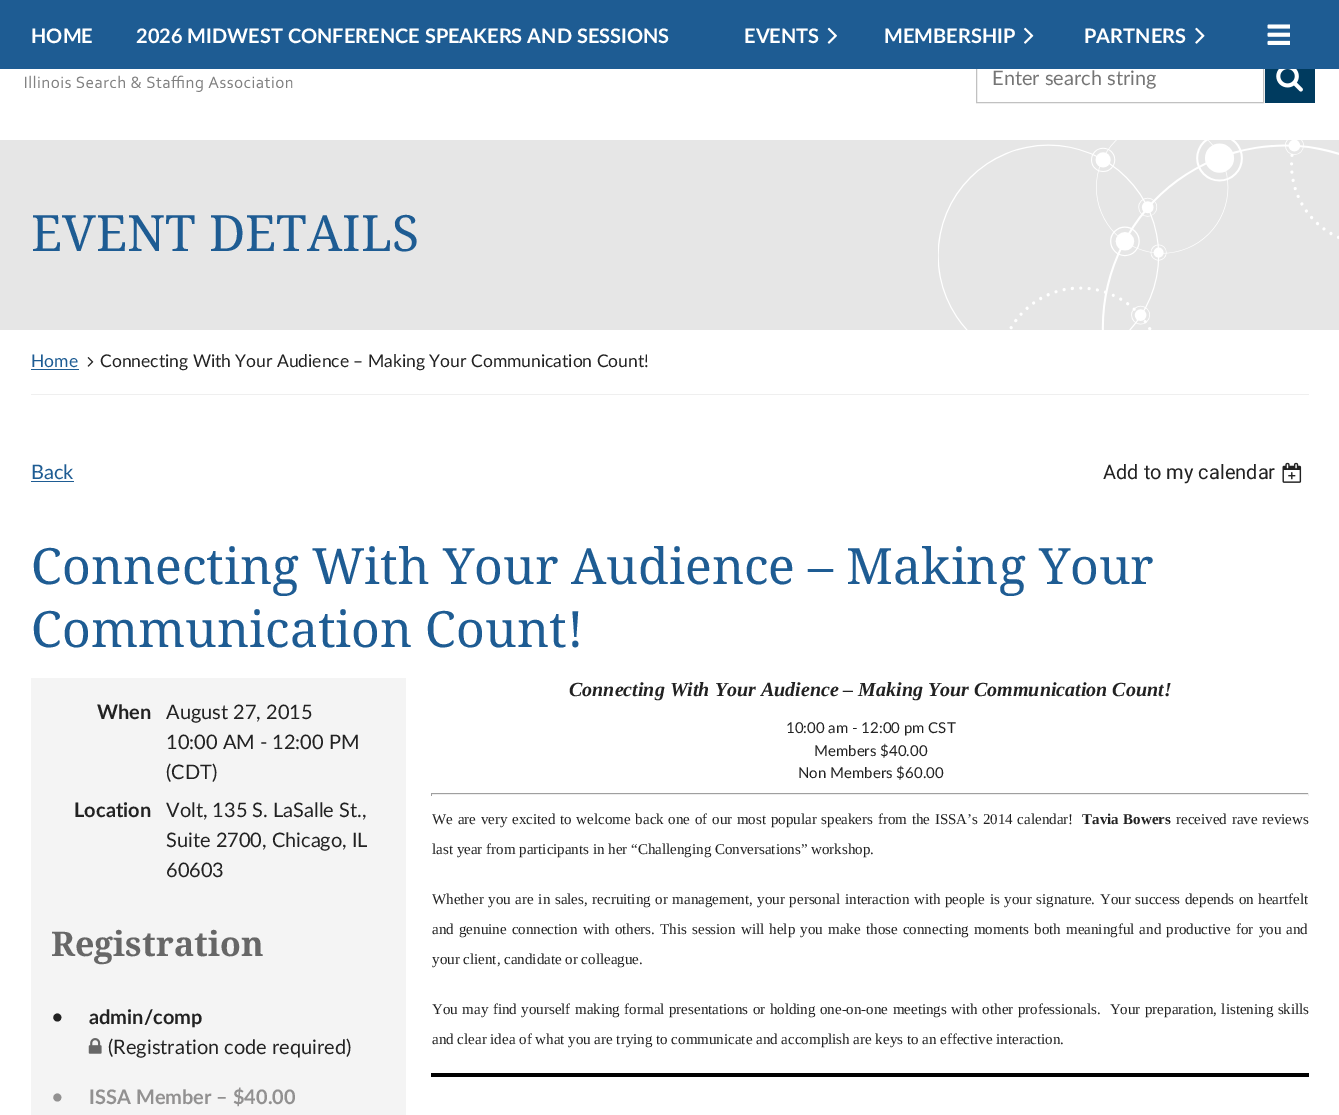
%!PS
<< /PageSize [1339 1115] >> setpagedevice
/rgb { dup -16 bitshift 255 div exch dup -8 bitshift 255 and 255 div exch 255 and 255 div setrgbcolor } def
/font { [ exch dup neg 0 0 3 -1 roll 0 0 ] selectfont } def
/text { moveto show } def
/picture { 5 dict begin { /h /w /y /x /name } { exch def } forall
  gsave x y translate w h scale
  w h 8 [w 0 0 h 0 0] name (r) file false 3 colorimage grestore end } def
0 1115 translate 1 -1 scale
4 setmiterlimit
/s1 { /Lato-Bold 20 font 16#FFFFFF rgb } def
/s2 { /Lato-Regular 20 font 16#757575 rgb } def
/s3 { /DroidSerif-Regular 50 font 16#1E5C93 rgb } def
/s4 { /Lato-Regular 17.5 font 16#1E5C93 rgb } def
/s5 { /Lato-Regular 17.5 font 16#222222 rgb } def
/s6 { /Lato-Regular 20 font 16#1E5C93 rgb } def
/s7 { /Roboto-Regular 20 font 16#222222 rgb } def
/s8 { /Lato-Bold 20 font 16#222222 rgb } def
/s9 { /Lato-Regular 20 font 16#222222 rgb } def
/s10 { /DroidSerif-Bold 34 font 16#676767 rgb } def
/s11 { /Lato-Regular 22 font 16#222222 rgb } def
/s12 { /Lato-Regular 22 font 16#929191 rgb } def
/s13 { /Lato-Bold 20 font 16#929191 rgb } def
/s14 { /LiberationSerif-BoldItalic 20 font 16#222222 rgb } def
/s15 { /Lato-Regular 15 font 16#222222 rgb } def
/s16 { /LiberationSerif-Regular 15 font 16#222222 rgb } def
16#FFFFFF rgb
0 0 1339 1115 rectfill
16#C1C1C1 rgb
976.5 53.5 287 49 rectstroke
16#1E5C93 rgb
0 0 1339 69 rectfill
s1
(HOME) 31 43 text
(2026 MIDWEST CONFERENCE SPEAKERS AND SESSIONS) 136 43 text
(EVENTS) 744 43 text
(pic1.raw) 827 27 10 17 picture
(MEMBERSHIP) 884 43 text
(pic2.raw) 1024 27 10 17 picture
(PARTNERS) 1084 43 text
(pic3.raw) 1195 27 10 17 picture
(pic4.raw) 1267 24 23 21 picture
(pic5.raw) 25 75 268 17 picture
s2
(Enter search string) 992 85 text
16#003B5F rgb
1265 69 50 34 rectfill
(pic6.raw) 1276 69 27 23 picture
16#E6E6E6 rgb
0 140 1339 190 rectfill
(pic7.raw) 938 140 401 190 picture
s3
(EVENT DETAILS) 31 251 text
16#EFEFEF rgb
31 394 1278 1 rectfill
s4
(Home) 31 367 text
31 369 48 1 rectfill
(pic8.raw) 87 357 7 10 picture
s5
(Connecting With Your Audience – Making Your Communication Count!) 100 367 text
s6
(Back) 31 479 text
31 481 43 1 rectfill
s7
(Add to my calendar) 1103 479 text
(pic9.raw) 1282 462 20 21 picture
s3
(Connecting With Your Audience – Making Your) 31 584 text
(Communication Count!) 31 647 text
16#F4F4F4 rgb
31 678 375 437 rectfill
s8
(When) 97 719 text
s9
(August 27, 2015) 166 719 text
(10:00 AM - 12:00 PM) 166 749 text
(\(CDT\)) 166 779 text
s8
(Location) 74 817 text
s9
(Volt, 135 S. LaSalle St.,) 166 817 text
(Suite 2700, Chicago, IL) 166 847 text
(60603) 166 877 text
s10
(Registration) 51 956 text
s11
(•) 51 1024 text
s8
(admin/comp) 89 1024 text
(pic10.raw) 88 1038 14 16 picture
s9
(\(Registration code required\)) 108 1054 text
s12
(•) 51 1104 text
s13
(ISSA Member – $40.00) 89 1104 text
s14
(Connecting With Your Audience – Making Your Communication Count!) 569 696 text
s15
(10:00 am - 12:00 pm CST) 786 733 text
(Members $40.00) 814 756 text
(Non Members $60.00) 798 778 text
16#9F9F9F rgb
431 793 878 1 rectfill
16#EEEEEE rgb
1308 793 1 3 rectfill
431 794 878 1 rectfill
16#9F9F9F rgb
431 793 1 3 rectfill
/LiberationSerif-Regular 15 font
16#222222 rgb
432 824 moveto 1 0 32 (We are very excited to welcome back one of our most popular speakers from the ISSA’s 2014 calendar!) widthshow
/LiberationSerif-Bold 15 font
1082 824 moveto 1 0 32 (Tavia Bowers) widthshow
/LiberationSerif-Regular 15 font
1176 824 moveto 1 0 32 (received rave reviews) widthshow
(last year from participants in her “Challenging Conversations” workshop.) 432 854 text
432 904 moveto 0.9 0 32 (Whether you are in sales, recruiting or management, your personal interaction with people is your signature. Your success depends on heartfelt) widthshow
432 934 moveto 1.5 0 32 (and genuine connection with others. This session will help you make those connecting moments both meaningful and productive for you and) widthshow
(your client, candidate or colleague.) 432 964 text
432 1014 moveto 0.75 0 32 (You may find yourself making formal presentations or holding one-on-one meetings with other professionals.  Your preparation, listening skills) widthshow
(and clear idea of what you are trying to communicate and accomplish are keys to an effective interaction.) 432 1044 text
16#000000 rgb
431 1073 878 4 rectfill
showpage
